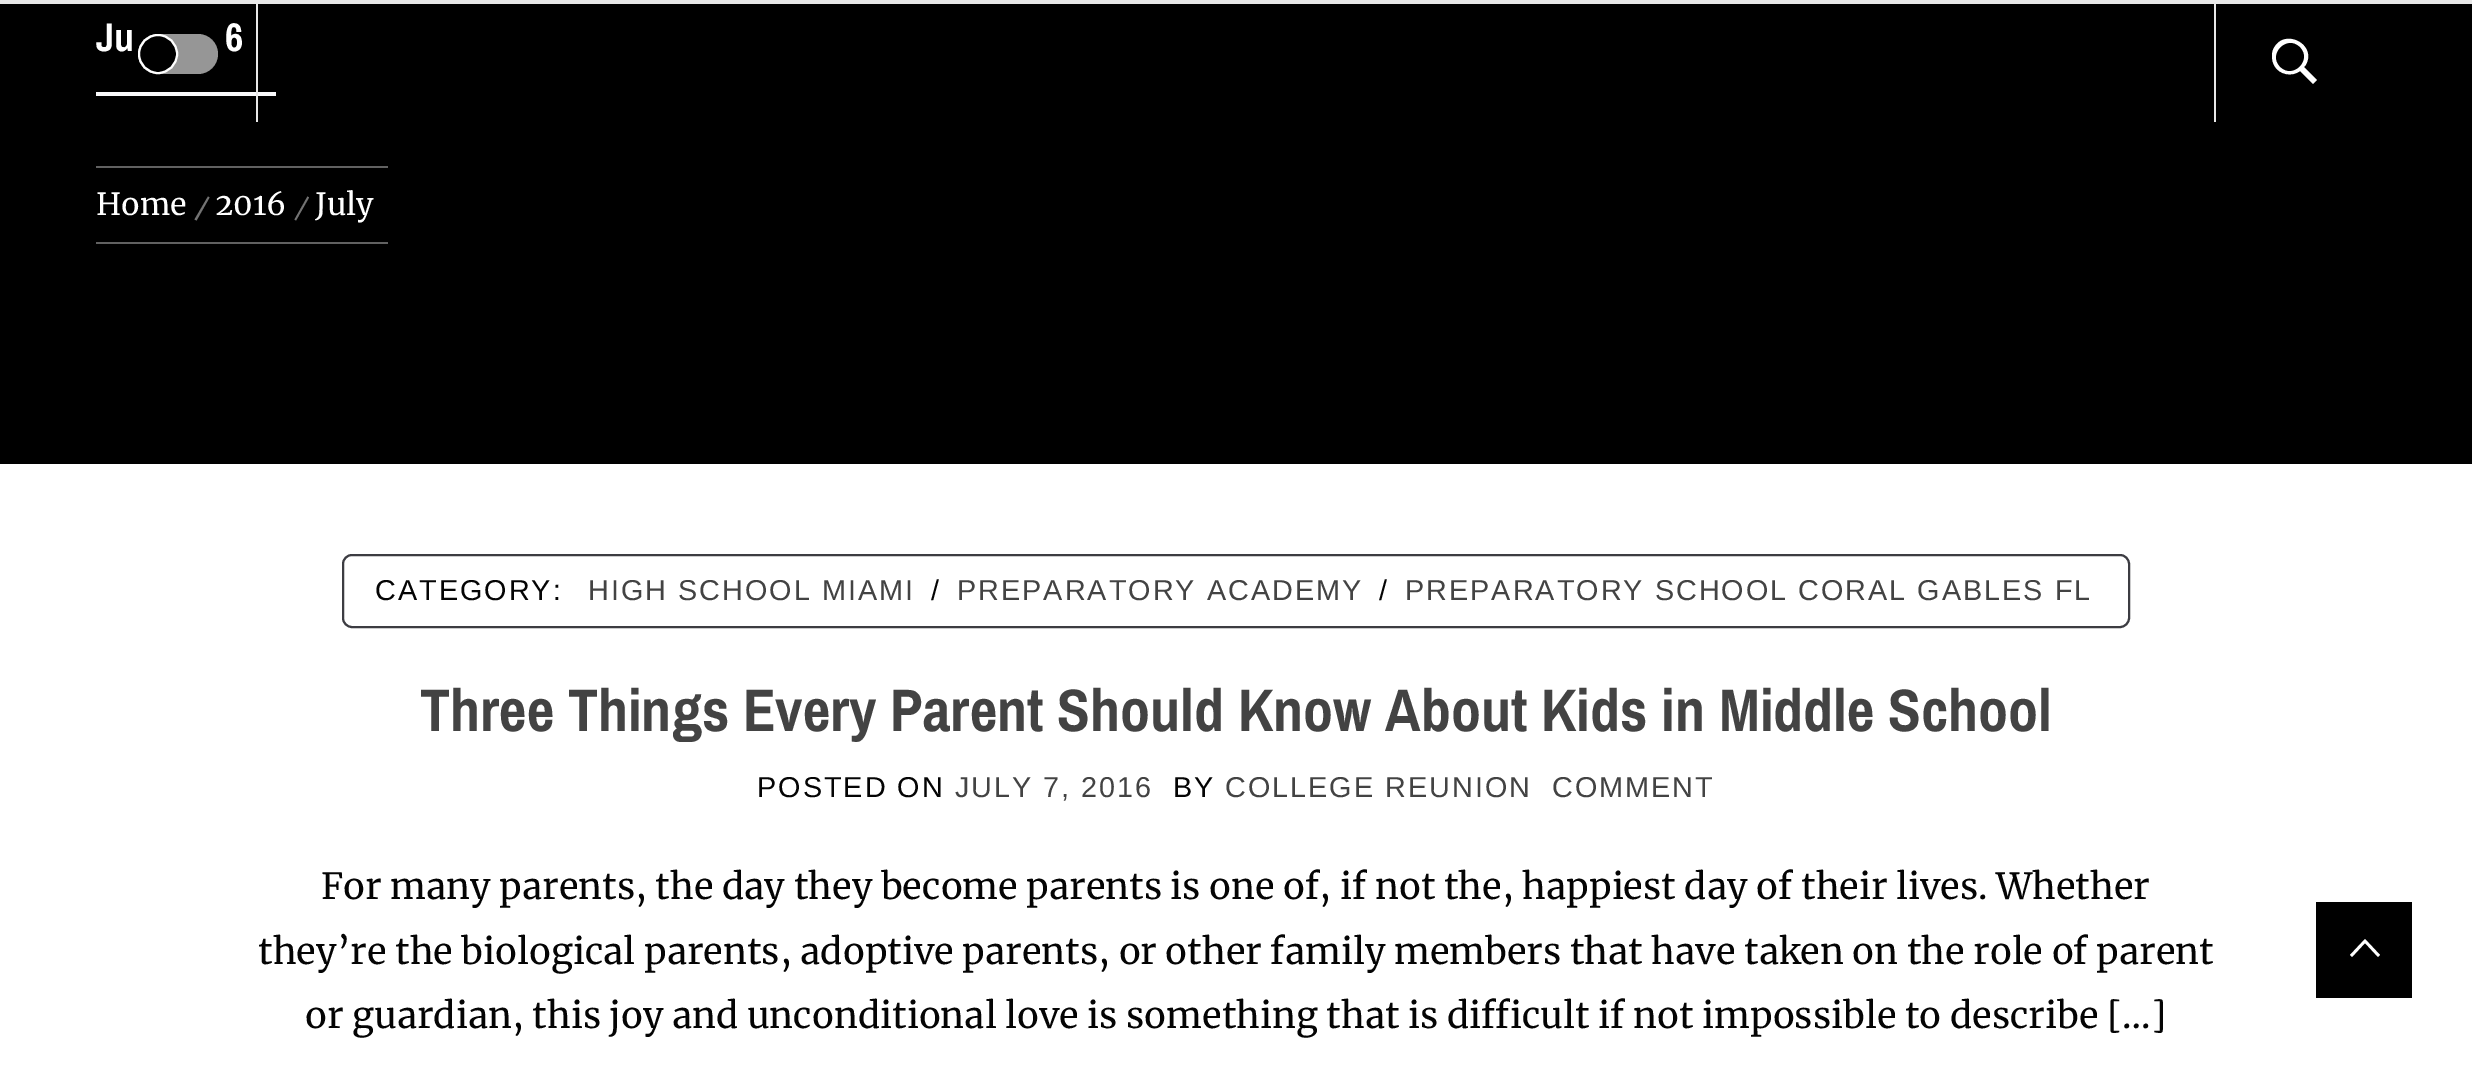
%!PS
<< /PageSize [2472 1087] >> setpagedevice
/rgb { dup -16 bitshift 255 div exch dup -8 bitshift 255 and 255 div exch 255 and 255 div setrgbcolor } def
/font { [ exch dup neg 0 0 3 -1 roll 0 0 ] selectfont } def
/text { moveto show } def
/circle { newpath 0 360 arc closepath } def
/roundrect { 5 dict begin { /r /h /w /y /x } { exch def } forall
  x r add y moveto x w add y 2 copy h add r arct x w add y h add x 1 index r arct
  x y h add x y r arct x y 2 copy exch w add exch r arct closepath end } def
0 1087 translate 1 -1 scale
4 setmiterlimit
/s1 { /ArchivoNarrow-Bold 40 font 16#FFFFFF rgb } def
/s2 { /Merriweather-Regular 30.5 font 16#FFFFFF rgb } def
/s3 { /ArchivoNarrow-Bold 60 font 16#434343 rgb } def
/s4 { /Merriweather-Regular 36 font 16#040404 rgb } def
16#FFFFFF rgb
0 0 2472 1087 rectfill
16#E8E8E8 rgb
0 0 2472 4 rectfill
16#000000 rgb
0 4 2472 460 rectfill
16#F9F9FB rgb
96 92 180 4 rectfill
16#E8E8E8 rgb
256 2 2 120 rectfill
16#969696 rgb
138 34 80 40 20 roundrect fill
16#000000 rgb
158 54 19 circle gsave fill grestore
16#FFFFFF rgb
2 setlinewidth
stroke
16#E8E8E8 rgb
2214 2 2 120 rectfill
16#FFFFFF rgb
2305 66 moveto 2304 67 lineto 2317 80 lineto 2313 84 lineto 2300 71 lineto 2292 77 2279 75 2274 65 curveto 2272 61 2271 55 2273 50 curveto 2283 26 2319 45 2305 66 curveto closepath 2300 47 moveto 2287 34 2267 54 2280 67 curveto 2293 80 2313 60 2300 47 curveto closepath fill
s1
(Ju) 96 51 text
(6) 225 51 text
16#616161 rgb
96 166 292 2 rectfill
96 242 292 2 rectfill
s2
(Home) 96 215 text
16#737373 rgb
208 196.5 moveto 209.5 197.5 lineto 196.5 220.5 lineto 194.5 219.5 lineto closepath fill
s2
(2016) 215 215 text
16#737373 rgb
307.5 196.5 moveto 309 197.5 lineto 296 220.5 lineto 294.5 219.5 lineto closepath fill
s2
(July) 315 215 text
16#3C3C42 rgb
343 555 1786 72 9 roundrect stroke
/LiberationSans-Regular 28.8 font
16#040404 rgb
375 600 moveto 2 0 (CATEGORY:) ashow
16#434343 rgb
588 600 moveto 2 0 (HIGH SCHOOL MIAMI) ashow
16#040404 rgb
931 600 moveto 2 0 (/) ashow
16#434343 rgb
957 600 moveto 2 0 (PREPARATORY ACADEMY) ashow
16#040404 rgb
1379 600 moveto 2 0 (/) ashow
16#434343 rgb
1405 600 moveto 2 0 (PREPARATORY SCHOOL CORAL GABLES FL) ashow
s3
(Three Things Every Parent Should Know About Kids in Middle School) 420 731 text
/LiberationSans-Regular 28.8 font
16#040404 rgb
757 797 moveto 2 0 (POSTED ON) ashow
16#434343 rgb
955 797 moveto 2 0 (JULY 7, 2016) ashow
16#040404 rgb
1173 797 moveto 2 0 (BY) ashow
16#434343 rgb
1225 797 moveto 2 0 (COLLEGE REUNION) ashow
1552 797 moveto 2 0 (COMMENT) ashow
s4
(For many parents, the day they become parents is one of, if not the, happiest day of their lives. Whether) 321 899 text
(they’re the biological parents, adoptive parents, or other family members that have taken on the role of parent) 258 964 text
(or guardian, this joy and unconditional love is something that is difficult if not impossible to describe […]) 305 1028 text
16#000000 rgb
2316 902 96 96 rectfill
16#FFFFFF rgb
2378 957 moveto 2365 943 lineto 2352 957 lineto 2350 955 lineto 2365 939 lineto 2380 955 lineto closepath fill
showpage
